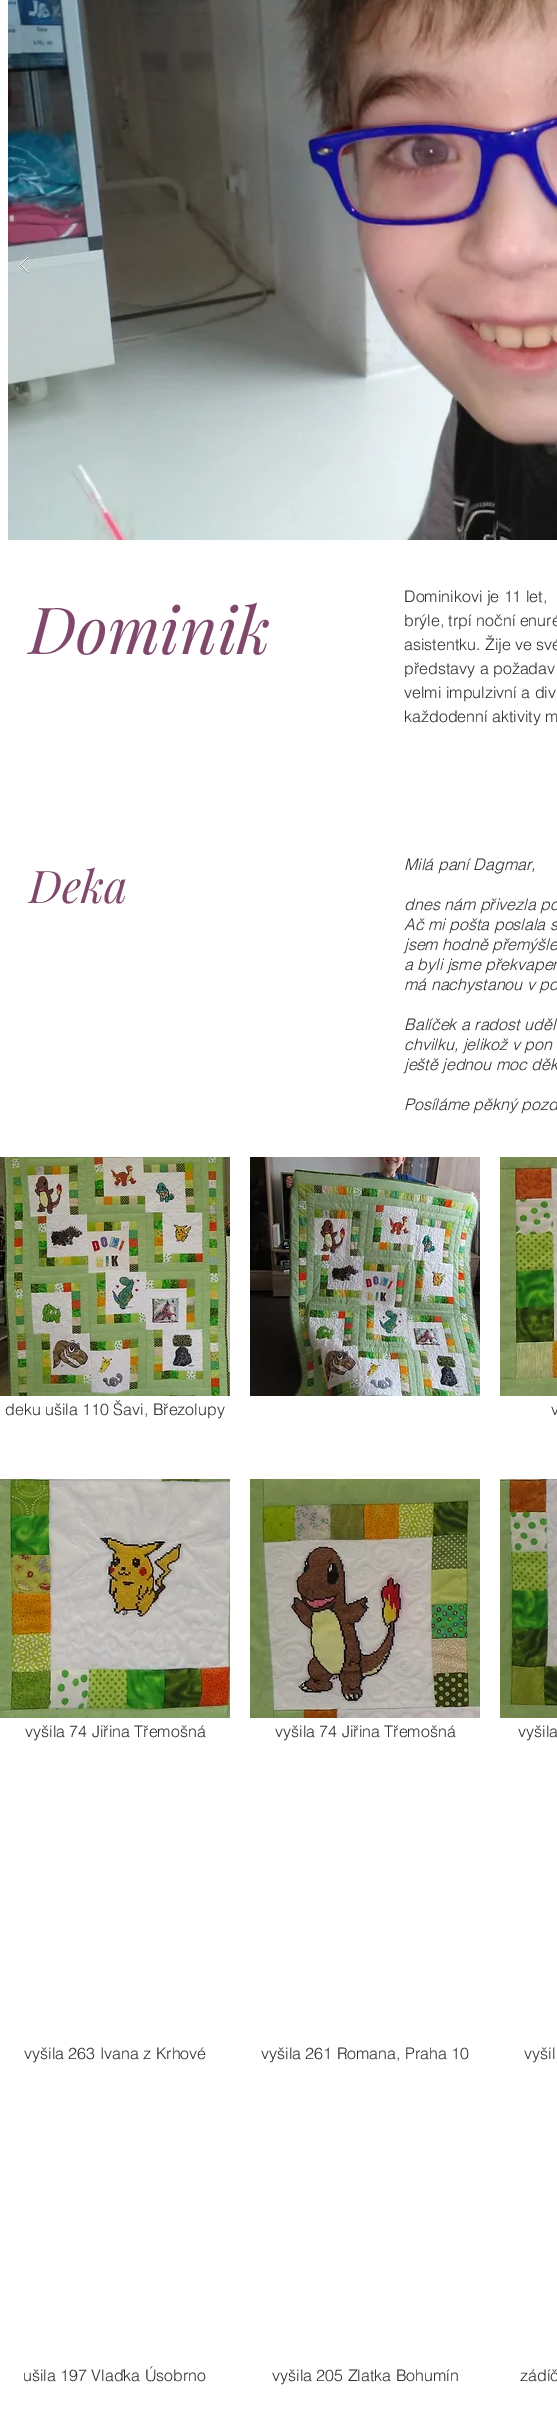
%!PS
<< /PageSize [557 2434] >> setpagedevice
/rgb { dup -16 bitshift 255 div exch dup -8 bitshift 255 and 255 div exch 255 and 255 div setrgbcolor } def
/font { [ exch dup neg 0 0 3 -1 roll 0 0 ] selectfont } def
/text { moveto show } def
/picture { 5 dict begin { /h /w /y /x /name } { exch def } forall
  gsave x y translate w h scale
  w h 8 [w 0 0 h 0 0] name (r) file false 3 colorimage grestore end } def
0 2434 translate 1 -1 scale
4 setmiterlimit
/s1 { /PlayfairDisplay-Italic 65 font 16#80486A rgb } def
/s2 { /helvetica-Light 16 font 16#2F2E2E rgb } def
/s3 { /PlayfairDisplay-Italic 45 font 16#80486A rgb } def
/s4 { /helvetica-LightItalic 16 font 16#2F2E2E rgb } def
16#FFFFFF rgb
0 0 557 2434 rectfill
(pic1.raw) 8 0 549 540 picture
(pic2.raw) 20 257 8 16 picture
s1
(Dominik) 29 654 text
s2
(Dominikovi je 11 let,) 404 602 text
(brýle, trpí noční enuré) 404 626 text
(asistentku. Žije ve své) 404 650 text
(představy a požadav) 404 674 text
(velmi impulzivní a div) 404 698 text
(každodenní aktivity m) 404 722 text
s3
(Deka) 29 903 text
s4
(Milá paní Dagmar,) 404 870 text
(dnes nám přivezla po) 404 910 text
(Ač mi pošta poslala s) 404 930 text
(jsem hodně přemýšle) 404 950 text
(a byli jsme překvapen) 404 970 text
(má nachystanou v po) 404 990 text
(Balíček a radost uděl) 404 1030 text
(chvilku, jelikož v pon) 404 1050 text
(ještě jednou moc děk) 404 1070 text
(Posíláme pěkný pozd) 404 1110 text
(pic3.raw) 250 1157 230 239 picture
(pic4.raw) 0 1157 230 239 picture
s2
(deku ušila 110 Šavi, Březolupy) 5 1415 text
(pic5.raw) 500 1157 57 239 picture
(v) 551 1415 text
(pic6.raw) 0 1479 230 239 picture
(vyšila 74 Jiřina Třemošná) 25 1737 text
(pic7.raw) 250 1479 230 239 picture
(vyšila 74 Jiřina Třemošná) 275 1737 text
(pic8.raw) 500 1479 57 239 picture
(vyšila) 518 1737 text
(vyšila 263 Ivana z Krhové) 24 2059 text
(vyšila 261 Romana, Praha 10) 261 2059 text
(vyšil) 524 2059 text
(ušila 197 Vlaďka Úsobrno) 23 2381 text
(vyšila 205 Zlatka Bohumín) 272 2381 text
(zádíč) 520 2381 text
showpage
